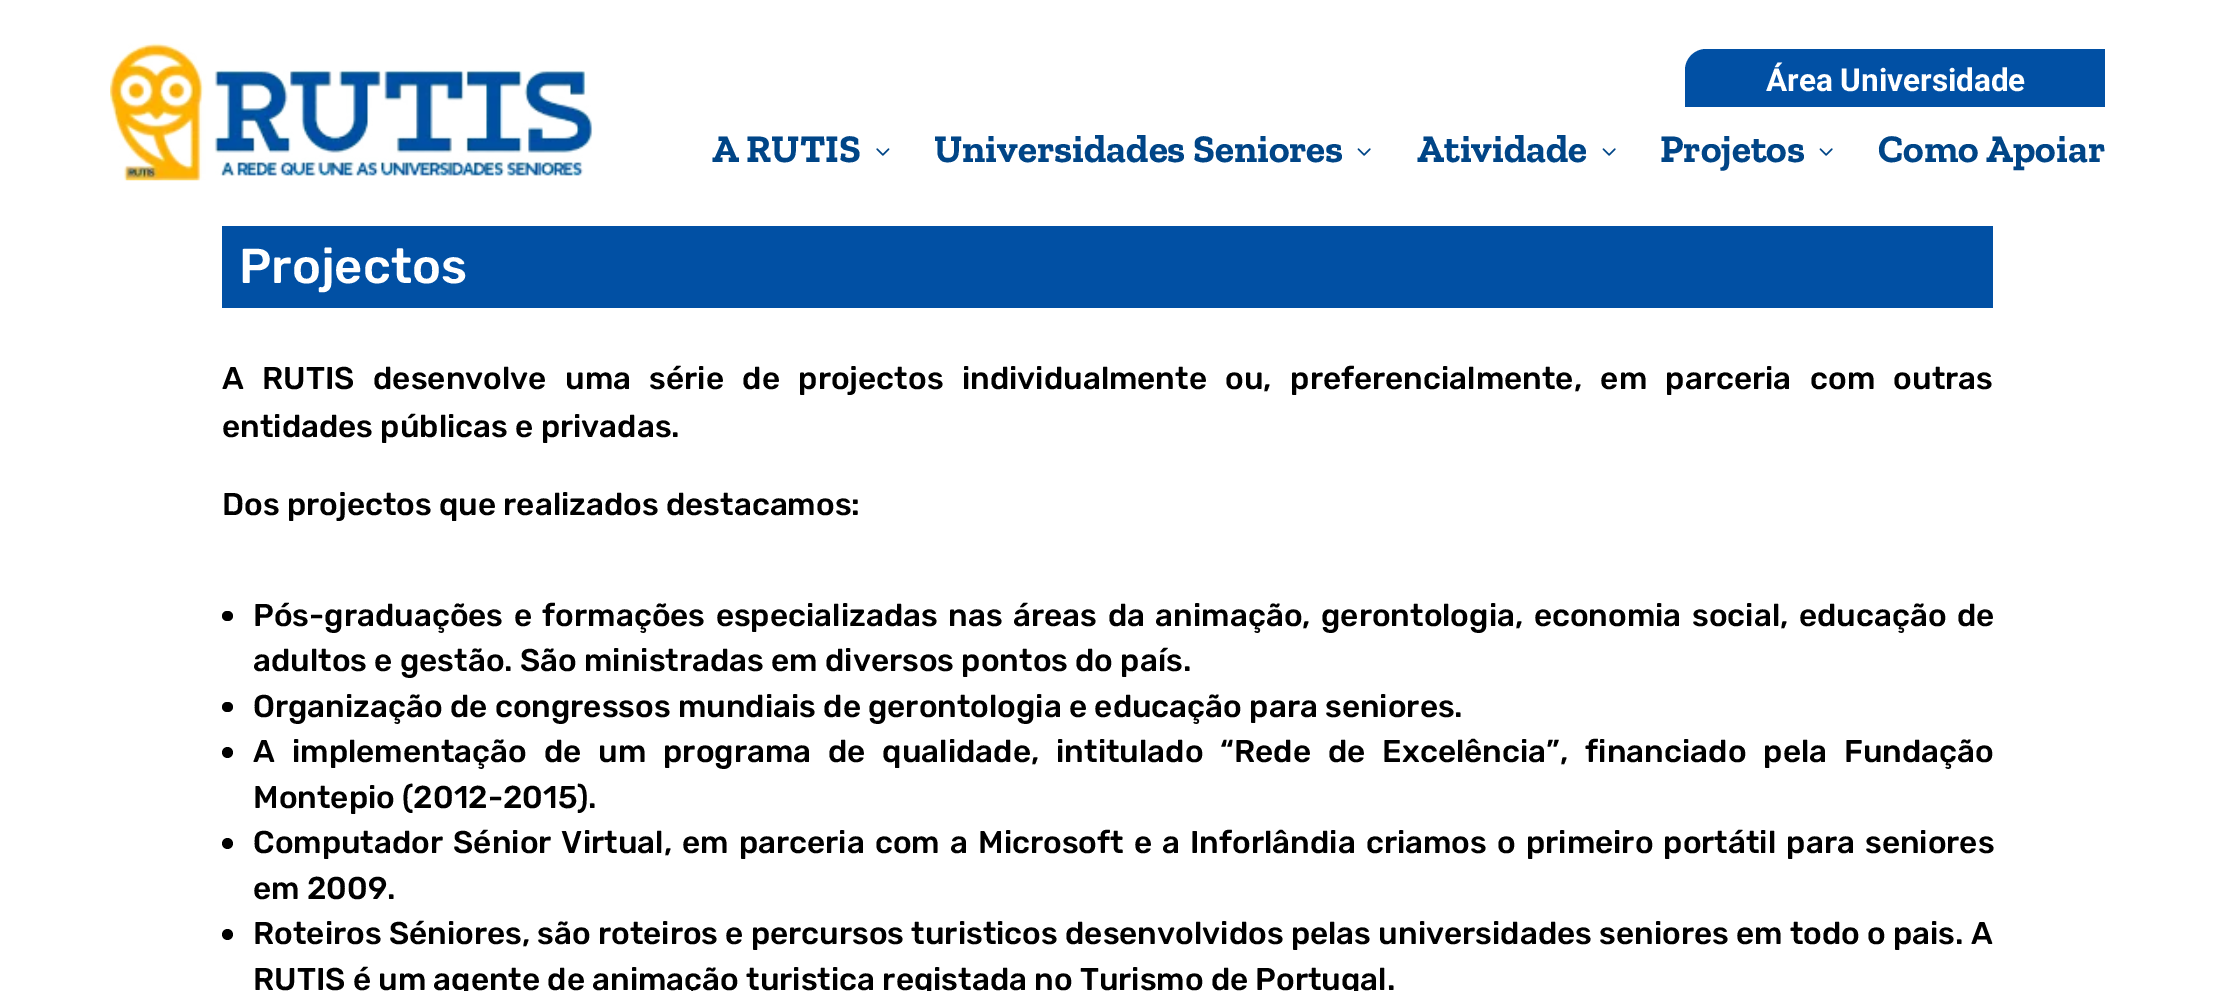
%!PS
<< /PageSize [2214 991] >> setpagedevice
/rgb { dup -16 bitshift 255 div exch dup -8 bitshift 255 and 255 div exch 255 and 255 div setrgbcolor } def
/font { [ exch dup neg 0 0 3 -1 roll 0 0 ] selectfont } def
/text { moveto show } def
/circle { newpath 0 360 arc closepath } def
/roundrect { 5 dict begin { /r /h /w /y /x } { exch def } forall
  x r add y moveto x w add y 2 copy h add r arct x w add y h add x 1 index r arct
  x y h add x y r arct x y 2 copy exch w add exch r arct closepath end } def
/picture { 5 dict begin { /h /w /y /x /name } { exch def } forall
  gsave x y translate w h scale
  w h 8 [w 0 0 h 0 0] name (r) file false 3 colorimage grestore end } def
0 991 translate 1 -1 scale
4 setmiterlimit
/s1 { /Roboto-Bold 31.5 font 16#FFFFFF rgb } def
/s2 { /ZillaSlab-Bold 39.25 font 16#004587 rgb } def
/s3 { /Rubik-Light 49 font 16#FFFFFF rgb } def
/s4 { /Rubik-Light 31.5 font 16#000000 rgb } def
16#FFFFFF rgb
0 0 2214 991 rectfill
(pic1.raw) 110 43 483 138 picture
16#0150A4 rgb
1706 49 moveto 2105 49 lineto 2105 107 lineto 1685 107 lineto 1685 70 lineto 1685 58.5 1694.5 49 1706 49 curveto closepath fill
s1
(Área Universidade) 1766 91 text
s2
(A RUTIS) 712 162 text
(pic2.raw) 876 148 14 8 picture
(Universidades Seniores) 934 162 text
(pic3.raw) 1357 148 14 8 picture
(Atividade) 1417 162 text
(pic3.raw) 1602 148 14 8 picture
(Projetos) 1660 162 text
(pic3.raw) 1819 148 14 8 picture
(Como Apoiar) 1878 162 text
16#0150A4 rgb
222 226 1771 82 rectfill
s3
(Projectos) 239 283 text
/Rubik-Light 31.5 font
16#000000 rgb
222 389 moveto 11.25 0 32 (A RUTIS desenvolve uma série de projectos individualmente ou, preferencialmente, em parceria com outras) widthshow
(entidades públicas e privadas.) 222 437 text
(Dos projectos que realizados destacamos:) 222 515 text
222 611 11 10 5 roundrect fill
253 626 moveto 3.25 0 32 (Pós-graduações e formações especializadas nas áreas da animação, gerontologia, economia social, educação de) widthshow
(adultos e gestão. São ministradas em diversos pontos do país.) 253 671 text
222 702 11 10 5 roundrect fill
(Organização de congressos mundiais de gerontologia e educação para seniores.) 253 717 text
227.5 752.5 5.5 circle fill
253 762 moveto 9.75 0 32 (A implementação de um programa de qualidade, intitulado “Rede de Excelência”, financiado pela Fundação) widthshow
(Montepio \(2012-2015\).) 253 808 text
227.5 843.5 5.5 circle fill
253 853 moveto 2.9 0 32 (Computador Sénior Virtual, em parceria com a Microsoft e a Inforlândia criamos o primeiro portátil para seniores) widthshow
(em 2009.) 253 899 text
227.5 934.5 5.5 circle fill
(Roteiros Séniores, são roteiros e percursos turisticos desenvolvidos pelas universidades seniores em todo o pais. A) 253 944 text
(RUTIS é um agente de animação turistica registada no Turismo de Portugal.) 253 990 text
showpage
